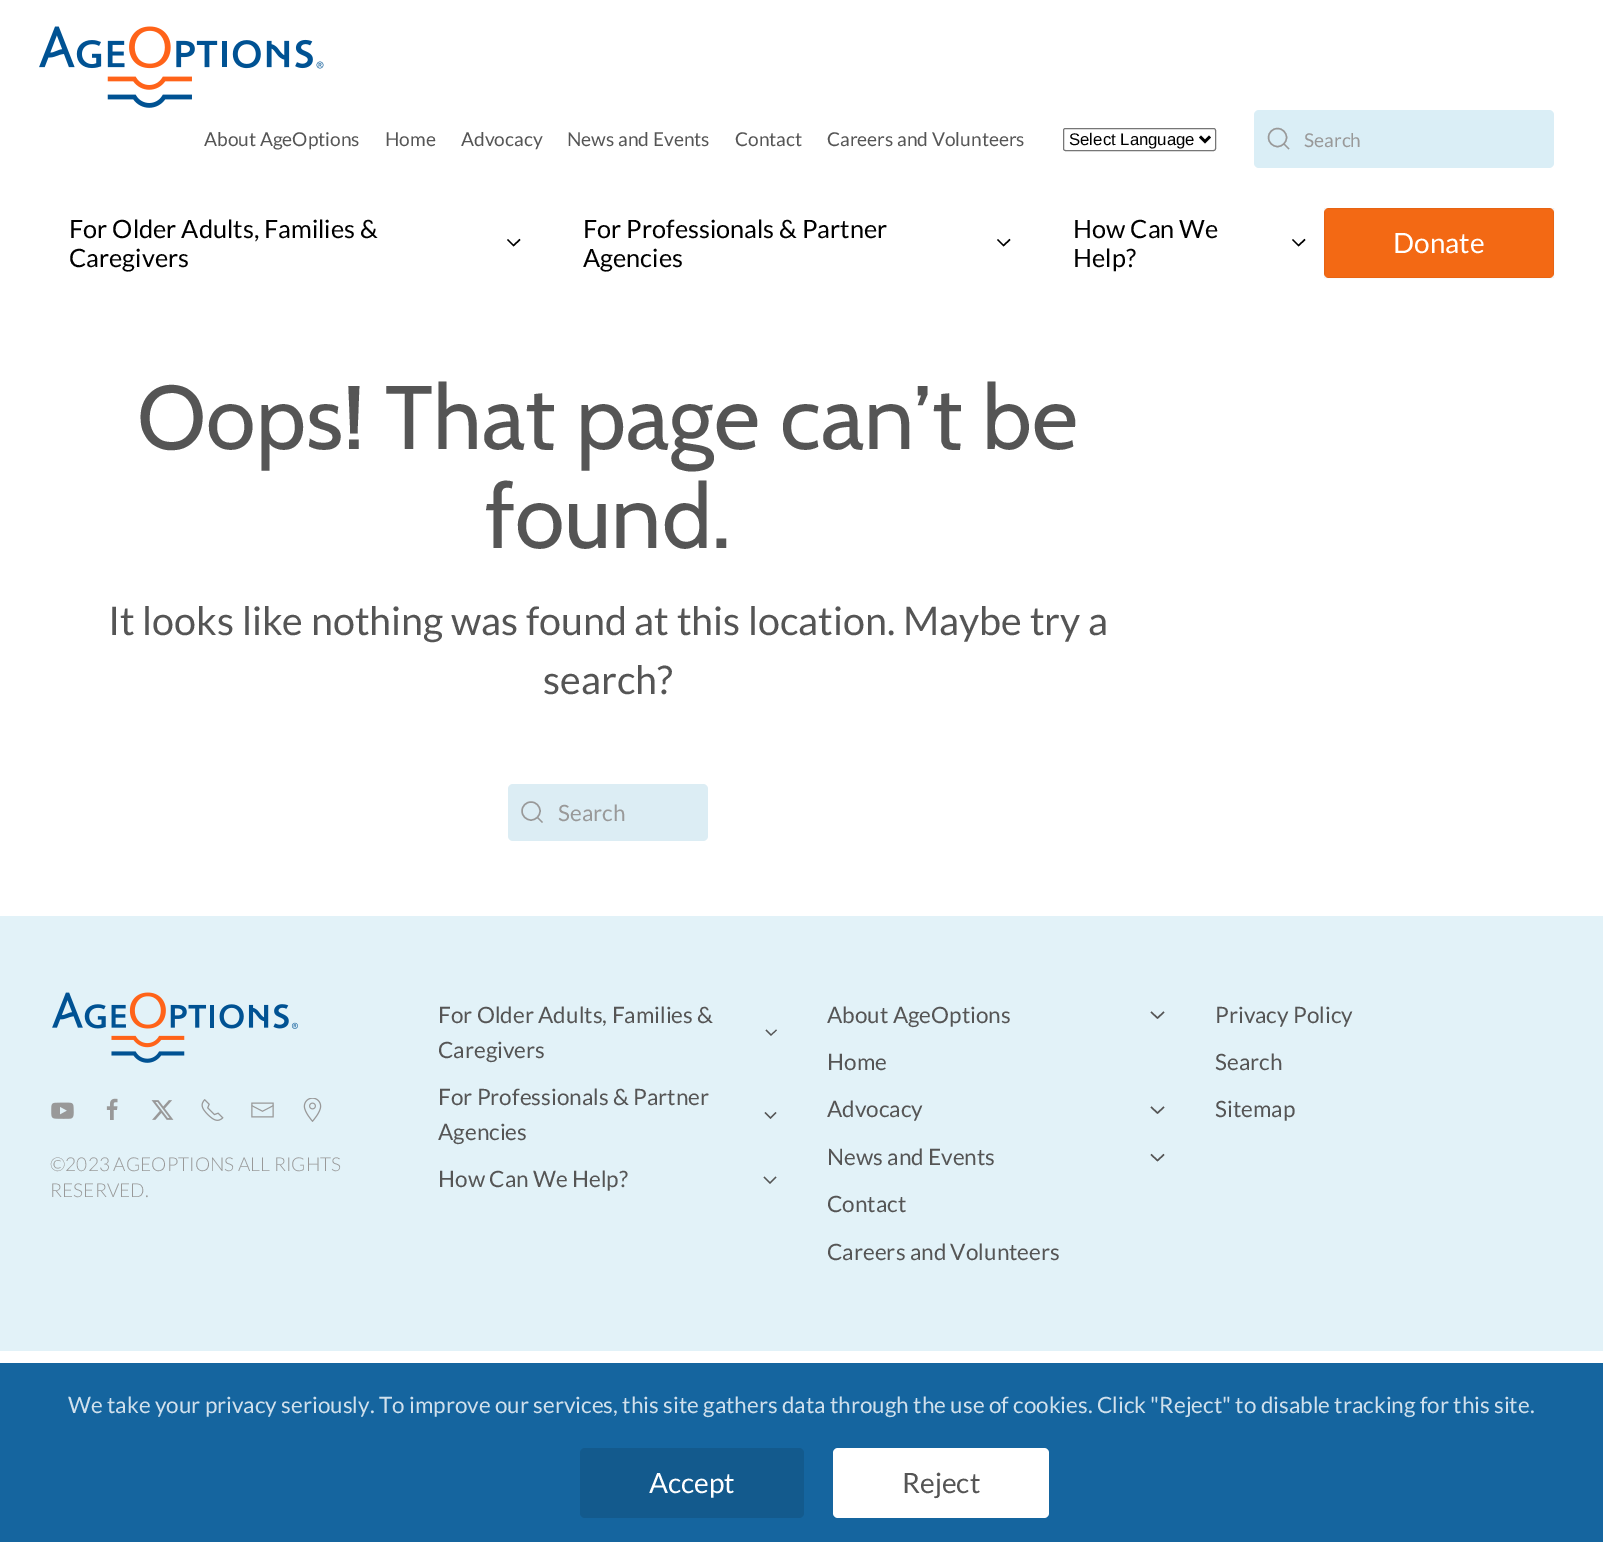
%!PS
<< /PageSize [1603 1542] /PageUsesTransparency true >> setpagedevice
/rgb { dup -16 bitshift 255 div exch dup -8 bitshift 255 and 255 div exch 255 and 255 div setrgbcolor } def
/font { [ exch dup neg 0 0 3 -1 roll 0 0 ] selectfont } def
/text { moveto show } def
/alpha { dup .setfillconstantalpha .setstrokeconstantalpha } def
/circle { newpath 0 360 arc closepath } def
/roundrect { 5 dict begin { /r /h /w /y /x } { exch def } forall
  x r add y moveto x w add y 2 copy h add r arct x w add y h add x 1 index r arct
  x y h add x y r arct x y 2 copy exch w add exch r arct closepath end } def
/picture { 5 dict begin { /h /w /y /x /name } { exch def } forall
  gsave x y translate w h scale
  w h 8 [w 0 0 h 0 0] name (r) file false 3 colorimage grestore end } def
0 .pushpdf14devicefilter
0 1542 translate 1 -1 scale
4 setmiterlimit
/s1 { /Lato-Regular 19.1 font 16#555555 rgb } def
/s2 { /LiberationSans-Regular 16.75 font 16#000000 rgb } def
/s3 { /Lato-Regular 19.1 font 16#999999 rgb } def
/s4 { /Lato-Regular 25.25 font 16#000000 rgb } def
/s5 { /Lato-Regular 28 font 16#FFFFFF rgb } def
/s6 { /Cabin-Regular 90 font 16#555555 rgb } def
/s7 { /Lato-Regular 39.4 font 16#555555 rgb } def
/s8 { /Lato-Regular 22.5 font 16#999999 rgb } def
/s9 { /Lato-Regular 22.5 font 16#555555 rgb } def
/s10 { /Lato-Light 19.1 font 16#999999 rgb } def
/s11 { /Lato-Regular 22.5 font 16#D0E0EC rgb } def
/s12 { /Lato-Regular 28 font 16#555555 rgb } def
16#FFFFFF rgb
0 0 1603 1542 rectfill
(pic1.raw) 39 26 285 82 picture
s1
(About AgeOptions) 204 146 text
(Home) 385 146 text
(Advocacy) 461 146 text
(News and Events) 567 146 text
(Contact) 735 146 text
(Careers and Volunteers) 827 146 text
16#767676 rgb
1063.5 128.5 152 22 2 roundrect stroke
16#000000 rgb
2.5 setlinewidth
1200 136.5 moveto 1205 141.5 lineto 1210 136.5 lineto stroke
s2
(Select Language) 1069 145 text
16#DAEEF6 rgb
1254 110 300 58 5 roundrect fill
16#999999 rgb
1.4 setlinewidth
1277.5 137.5 9 circle stroke
1284 144 moveto 1289 149 lineto closepath stroke
s3
(Search) 1304 147 text
s4
(For Older Adults, Families &) 69 238 text
507.5 239.5 moveto 513.5 245.5 lineto 520 239.5 lineto stroke
(Caregivers) 69 267 text
(For Professionals & Partner) 583 238 text
997.5 239.5 moveto 1003.5 245.5 lineto 1010 239.5 lineto stroke
(Agencies) 583 267 text
(How Can We) 1073 238 text
1292.5 239.5 moveto 1298.5 245.5 lineto 1305 239.5 lineto stroke
(Help?) 1073 267 text
16#F36914 rgb
1324 208 230 70 5 roundrect fill
0.05 alpha
16#000000 rgb
1 setlinewidth
1324.5 208.5 229 69 rectstroke
1 alpha
s5
(Donate) 1393 253 text
s6
(Oops! That page can’t be) 137 449 text
(found.) 485 548 text
s7
(It looks like nothing was found at this location. Maybe try a) 108 635 text
(search?) 543 694 text
16#DCEDF4 rgb
508 784 200 57 5 roundrect fill
16#999999 rgb
1.4 setlinewidth
531 811 9 circle stroke
537.5 817.5 moveto 542.5 822.5 lineto closepath stroke
s8
(Search) 558 821 text
16#E2F2F8 rgb
0 916 1603 435 rectfill
s9
(For Older Adults, Families &) 438 1023 text
1.1 setlinewidth
766 1030 moveto 771 1035 lineto 776.5 1030 lineto stroke
(Caregivers) 438 1058 text
(For Professionals & Partner) 438 1105 text
1.2 setlinewidth
765 1112.5 moveto 770.5 1118 lineto 776 1112.5 lineto stroke
(Agencies) 438 1140 text
(How Can We Help?) 438 1187 text
1.4 setlinewidth
764 1177 moveto 770 1183 lineto 776 1177 lineto stroke
(About AgeOptions) 827 1023 text
1151 1012 moveto 1157.5 1018 lineto 1164 1012 lineto stroke
(Home) 827 1070 text
(Advocacy) 827 1117 text
1151 1107 moveto 1157.5 1113 lineto 1164 1107 lineto 1151 1154.5 moveto 1157.5 1160.5 lineto 1164 1154.5 lineto stroke
(News and Events) 827 1165 text
(Contact) 827 1212 text
(Careers and Volunteers) 827 1260 text
(Privacy Policy) 1215 1023 text
(Search) 1215 1070 text
(Sitemap) 1215 1117 text
(pic2.raw) 52 992 246 71 picture
(pic3.raw) 51 1102 23 17 picture
(pic4.raw) 106 1098 12 22 picture
(pic5.raw) 151 1100 23 20 picture
(pic6.raw) 201 1099 23 22 picture
(pic7.raw) 251 1102 23 16 picture
(pic8.raw) 303 1098 19 24 picture
s10
(©2023 AGEOPTIONS ALL RIGHTS) 50 1171 text
(RESERVED.) 50 1197 text
16#15659F rgb
0 1363 1603 179 rectfill
s11
(We take your privacy seriously. To improve our services, this site gathers data through the use of cookies. Click "Reject" to disable tracking for this site.) 68 1413 text
16#135A8D rgb
580 1448 224 70 5 roundrect fill
s5
(Accept) 649 1493 text
833 1448 216 70 5 roundrect fill
s12
(Reject) 902 1493 text
.poppdf14devicefilter showpage
